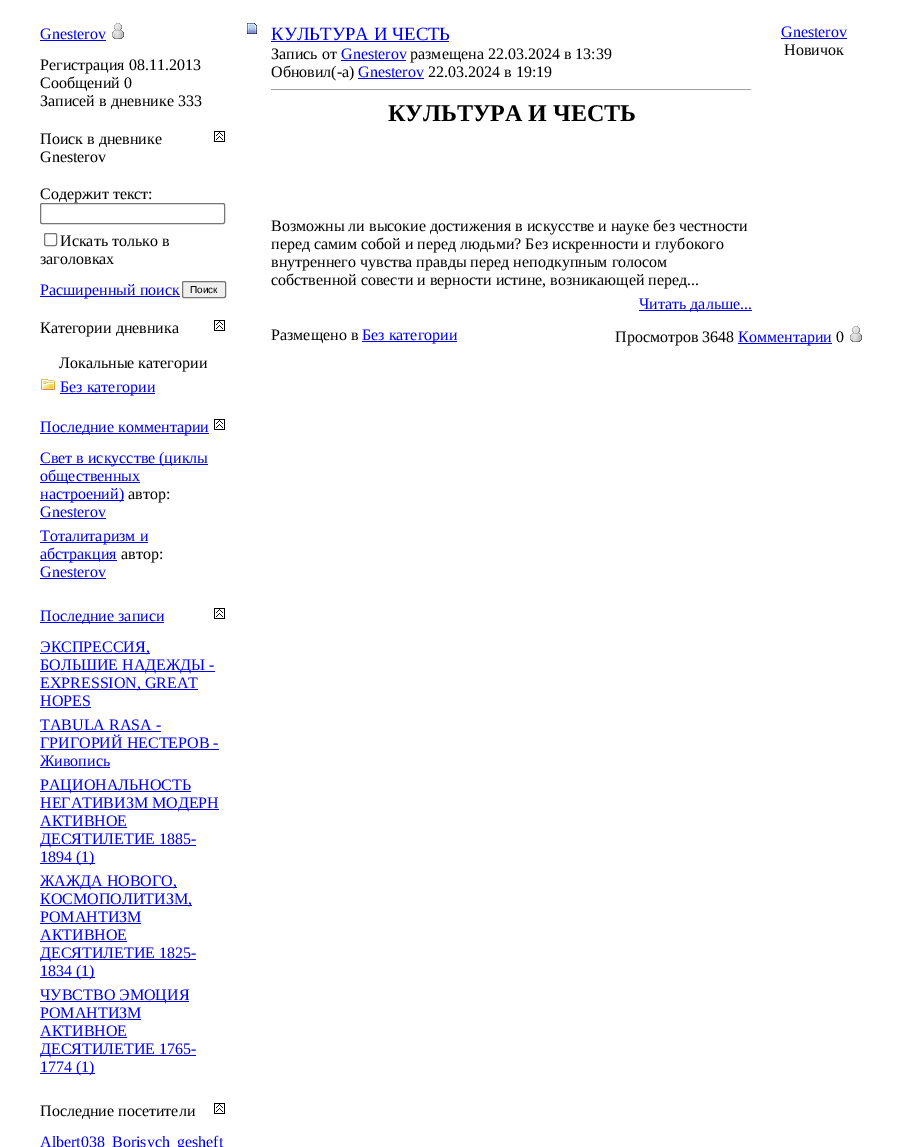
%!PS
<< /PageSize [904 1147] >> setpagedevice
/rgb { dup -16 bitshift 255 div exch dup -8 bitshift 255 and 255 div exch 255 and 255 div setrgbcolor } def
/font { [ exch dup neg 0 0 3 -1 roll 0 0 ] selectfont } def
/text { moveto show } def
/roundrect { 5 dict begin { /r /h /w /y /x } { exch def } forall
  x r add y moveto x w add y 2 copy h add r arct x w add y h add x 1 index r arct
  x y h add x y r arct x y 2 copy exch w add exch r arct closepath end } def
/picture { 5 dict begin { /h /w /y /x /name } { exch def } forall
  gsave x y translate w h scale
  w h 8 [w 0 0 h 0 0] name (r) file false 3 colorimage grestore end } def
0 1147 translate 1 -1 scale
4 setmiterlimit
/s1 { /LiberationSerif-Regular 16 font 16#0000EE rgb } def
/s2 { /LiberationSerif-Regular 16 font 16#000000 rgb } def
/s3 { /LiberationSans-Regular 10 font 16#000000 rgb } def
/s4 { /LiberationSerif-Regular 18.75 font 16#0000EE rgb } def
/s5 { /LiberationSerif-Bold 24 font 16#000000 rgb } def
16#FFFFFF rgb
0 0 904 1147 rectfill
s1
(Gnesterov) 40 39 text
40 40 66 1 rectfill
(pic1.raw) 112 23 12 16 picture
s2
(Регистрация 08.11.2013) 40 70 text
(Сообщений 0) 40 88 text
(Записей в дневнике 333) 40 106 text
(Поиск в дневнике) 40 144 text
(pic2.raw) 214 131 11 11 picture
(Gnesterov) 40 162 text
(Содержит текст:) 40 199 text
16#767676 rgb
40.5 203.5 184 20 1.5 roundrect stroke
44.5 233.5 12 12 1.5 roundrect stroke
s2
(Искать только в) 60 246 text
(заголовках) 40 264 text
16#0000EE rgb
40 296 140 1 rectfill
(Расширенный поиск) 40 295 text
16#EFEFEF rgb
182.5 281.5 43 16 1.5 roundrect gsave fill grestore
16#767676 rgb
stroke
s3
(Поиск) 190 293 text
s2
(Категории дневника) 40 333 text
(pic2.raw) 214 320 11 11 picture
(Локальные категории) 59 368 text
(pic3.raw) 41 379 14 11 picture
16#0000EE rgb
60 393 95 1 rectfill
(Без категории) 60 392 text
40 433 169 1 rectfill
(Последние комментарии) 40 432 text
(pic2.raw) 214 419 11 11 picture
40 464 168 1 rectfill
(Свет в искусстве \(циклы) 40 463 text
40 482 100 1 rectfill
(общественных) 40 481 text
40 500 84 1 rectfill
(настроений\)) 40 499 text
s2
(автор:) 128 499 text
s1
(Gnesterov) 40 517 text
40 518 66 1 rectfill
40 542 108 1 rectfill
(Тоталитаризм и) 40 541 text
40 560 77 1 rectfill
(абстракция) 40 559 text
s2
(автор:) 121 559 text
s1
(Gnesterov) 40 577 text
40 578 66 1 rectfill
40 622 124 1 rectfill
(Последние записи) 40 621 text
(pic2.raw) 214 608 11 11 picture
40 653 110 1 rectfill
(ЭКСПРЕССИЯ,) 40 652 text
40 671 175 1 rectfill
(БОЛЬШИЕ НАДЕЖДЫ -) 40 670 text
40 689 158 1 rectfill
(EXPRESSION, GREAT) 40 688 text
(HOPES) 40 706 text
40 707 51 1 rectfill
(TABULA RASA -) 40 730 text
40 731 121 1 rectfill
(ГРИГОРИЙ НЕСТЕРОВ -) 40 748 text
40 749 179 1 rectfill
(Живопись) 40 766 text
40 767 70 1 rectfill
40 791 151 1 rectfill
(РАЦИОНАЛЬНОСТЬ) 40 790 text
40 809 179 1 rectfill
(НЕГАТИВИЗМ МОДЕРН) 40 808 text
(АКТИВНОЕ) 40 826 text
40 827 87 1 rectfill
40 845 156 1 rectfill
(ДЕСЯТИЛЕТИЕ 1885-) 40 844 text
40 863 55 1 rectfill
(1894 \(1\)) 40 862 text
40 887 137 1 rectfill
(ЖАЖДА НОВОГО,) 40 886 text
40 905 152 1 rectfill
(КОСМОПОЛИТИЗМ,) 40 904 text
(РОМАНТИЗМ) 40 922 text
40 923 101 1 rectfill
(АКТИВНОЕ) 40 940 text
40 941 87 1 rectfill
40 959 156 1 rectfill
(ДЕСЯТИЛЕТИЕ 1825-) 40 958 text
40 977 55 1 rectfill
(1834 \(1\)) 40 976 text
40 1001 149 1 rectfill
(ЧУВСТВО ЭМОЦИЯ) 40 1000 text
(РОМАНТИЗМ) 40 1018 text
40 1019 101 1 rectfill
(АКТИВНОЕ) 40 1036 text
40 1037 87 1 rectfill
40 1055 156 1 rectfill
(ДЕСЯТИЛЕТИЕ 1765-) 40 1054 text
40 1073 55 1 rectfill
(1774 \(1\)) 40 1072 text
s2
(Последние посетители) 40 1116 text
(pic2.raw) 214 1103 11 11 picture
s1
(Albert038) 40 1147 text
(Borisych) 112 1147 text
(gesheft) 177 1147 text
(pic4.raw) 247 23 10 11 picture
s4
(КУЛЬТУРА И ЧЕСТЬ) 271 40 text
271 41 178 1 rectfill
s2
(Запись от) 271 59 text
s1
(Gnesterov) 341 59 text
341 60 65 1 rectfill
s2
(размещена 22.03.2024 в 13:39) 410 59 text
(Обновил\(-а\)) 271 77 text
s1
(Gnesterov) 358 77 text
358 78 66 1 rectfill
s2
(22.03.2024 в 19:19) 428 77 text
16#9F9F9F rgb
271 89 481 1 rectfill
16#EEEEEE rgb
751 89 1 1 rectfill
s5
(КУЛЬТУРА И ЧЕСТЬ) 388 121 text
s2
(Возможны ли высокие достижения в искусстве и науке без честности) 271 231 text
(перед самим собой и перед людьми? Без искренности и глубокого) 271 249 text
(внутреннего чувства правды перед неподкупным голосом) 271 267 text
(собственной совести и верности истине, возникающей перед...) 271 285 text
16#0000EE rgb
639 310 113 1 rectfill
(Читать дальше...) 639 309 text
(Gnesterov) 781 37 text
781 38 66 1 rectfill
s2
(Новичок) 784 55 text
(Размещено в) 271 340 text
16#0000EE rgb
362 341 95 1 rectfill
(Без категории) 362 340 text
s2
(Просмотров 3648) 615 342 text
16#0000EE rgb
738 343 94 1 rectfill
(Комментарии) 738 342 text
s2
(0) 836 342 text
(pic1.raw) 850 326 12 16 picture
showpage
